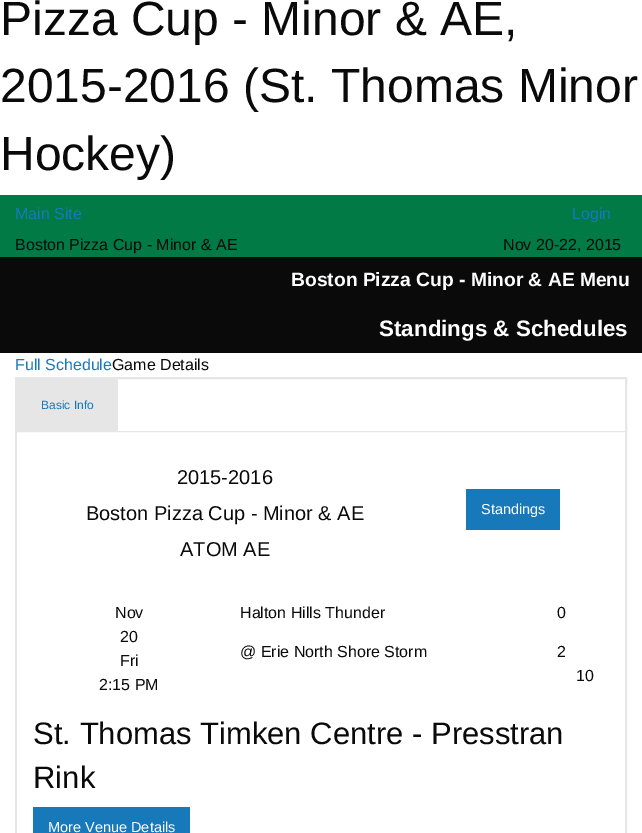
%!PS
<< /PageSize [642 833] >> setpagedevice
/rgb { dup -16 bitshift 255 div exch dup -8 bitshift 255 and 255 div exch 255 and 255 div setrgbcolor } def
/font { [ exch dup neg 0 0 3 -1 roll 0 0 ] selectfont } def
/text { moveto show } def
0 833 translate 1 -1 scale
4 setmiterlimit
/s1 { /LiberationSans-Regular 48 font 16#0A0A0A rgb } def
/s2 { /LiberationSans-Regular 16 font 16#1779BA rgb } def
/s3 { /LiberationSans-Regular 16 font 16#0A0A0A rgb } def
/s4 { /LiberationSans-Bold 19.25 font 16#FEFEFE rgb } def
/s5 { /LiberationSans-Bold 22.4 font 16#FEFEFE rgb } def
/s6 { /LiberationSans-Regular 12 font 16#1779BA rgb } def
/s7 { /LiberationSans-Regular 20 font 16#0A0A0A rgb } def
/s8 { /LiberationSans-Regular 14.5 font 16#FEFEFE rgb } def
/s9 { /LiberationSans-Regular 31 font 16#0A0A0A rgb } def
16#FFFFFF rgb
0 0 642 833 rectfill
s1
(Pizza Cup - Minor & AE,) 0 35 text
(2015-2016 \(St. Thomas Minor) 0 102 text
(Hockey\)) 0 170 text
16#017A46 rgb
0 195 642 62 rectfill
s2
(Main Site) 15 219 text
(Login) 572 219 text
s3
(Boston Pizza Cup - Minor & AE) 15 250 text
(Nov 20-22, 2015) 503 250 text
0 257 642 96 rectfill
s4
(Boston Pizza Cup - Minor & AE Menu) 291 286 text
s5
(Standings & Schedules) 379 336 text
s2
(Full Schedule) 15 370 text
s3
(Game Details) 112 370 text
16#E6E6E6 rgb
15.5 377.5 611 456 rectstroke
16.5 378.5 609 53 rectstroke
17 379 101 52 rectfill
s6
(Basic Info) 41 409 text
16#E6E6E6 rgb
625 432 1 401 rectfill
16 432 1 401 rectfill
s7
(2015-2016) 177 484 text
(Boston Pizza Cup - Minor & AE) 86 520 text
(ATOM AE) 180 556 text
16#1779BA rgb
466 489 94 41 rectfill
s8
(Standings) 481 514 text
s3
(Nov) 115 618 text
(20) 120 642 text
(Fri) 120 666 text
(2:15 PM) 99 690 text
(Halton Hills Thunder) 240 618 text
(0) 557 618 text
(@ Erie North Shore Storm) 240 657 text
(2) 557 657 text
(10) 576 681 text
s9
(St. Thomas Timken Centre - Presstran) 33 744 text
(Rink) 33 788 text
16#1779BA rgb
33 807 157 26 rectfill
s8
(More Venue Details) 48 832 text
showpage
